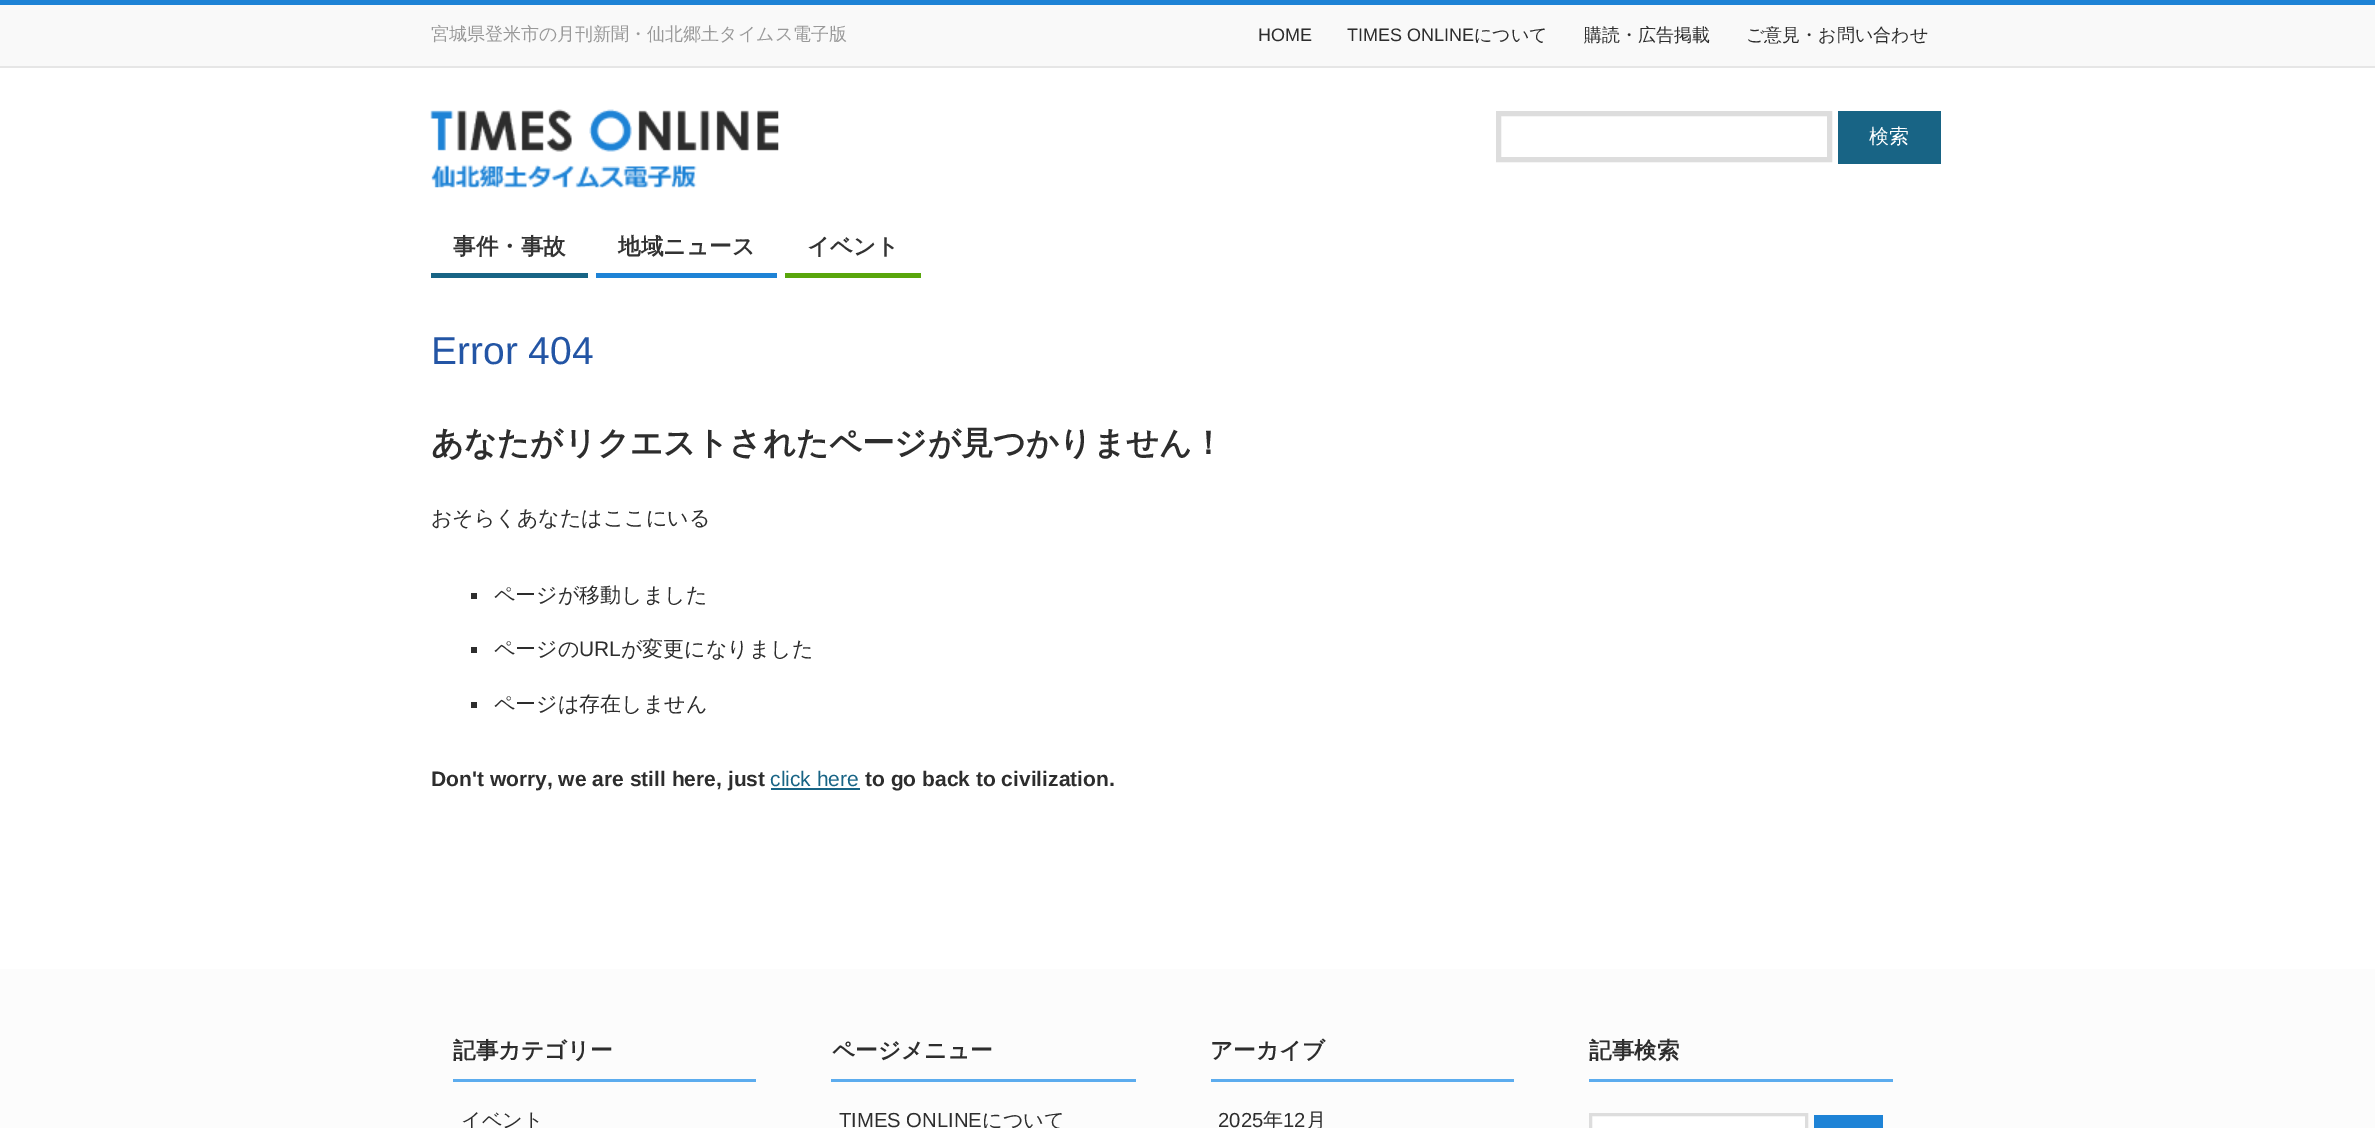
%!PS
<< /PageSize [2375 1128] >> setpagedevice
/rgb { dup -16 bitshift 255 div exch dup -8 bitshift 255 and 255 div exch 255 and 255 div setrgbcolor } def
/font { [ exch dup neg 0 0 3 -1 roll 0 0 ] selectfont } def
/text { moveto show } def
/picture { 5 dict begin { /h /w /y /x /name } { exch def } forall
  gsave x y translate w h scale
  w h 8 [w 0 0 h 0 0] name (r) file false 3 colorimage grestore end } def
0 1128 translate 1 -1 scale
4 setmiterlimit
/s1 { /WenQuanYiZenHei-Medium 18 font 16#999999 rgb } def
/s2 { /LiberationSans-Regular 18 font 16#2D2D2D rgb } def
/s3 { /WenQuanYiZenHei-Medium 18 font 16#2D2D2D rgb } def
/s4 { /WenQuanYiZenHei-Medium 20 font 16#FFFFFF rgb } def
/s5 { /WenQuanYiZenHei-Bold 22.5 font 16#333333 rgb } def
/s6 { /LiberationSans-Regular 39 font 16#2355A5 rgb } def
/s7 { /WenQuanYiZenHei-Bold 32.4 font 16#2D2D2D rgb } def
/s8 { /WenQuanYiZenHei-Medium 21 font 16#2D2D2D rgb } def
/s9 { /LiberationSans-Regular 21 font 16#2D2D2D rgb } def
/s10 { /LiberationSans-Bold 21 font 16#2D2D2D rgb } def
/s11 { /LiberationSans-Regular 21 font 16#186485 rgb } def
/s12 { /WenQuanYiZenHei-Bold 22.5 font 16#2D2D2D rgb } def
/s13 { /WenQuanYiZenHei-Medium 20.25 font 16#2D2D2D rgb } def
/s14 { /LiberationSans-Regular 20.25 font 16#2D2D2D rgb } def
16#FFFFFF rgb
0 0 2375 1128 rectfill
16#F9F9F9 rgb
0 5 2375 61 rectfill
16#1E83D6 rgb
0 0 2375 5 rectfill
16#E6E6E6 rgb
0 66 2375 2 rectfill
s1
(宮城県登米市の月刊新聞・仙北郷土タイムス電子版) 431 40 text
s2
(HOME) 1258 41 text
(TIMES ONLINE) 1347 41 text
s3
(について) 1474 41 text
(購読・広告掲載) 1584 41 text
(ご意見・お問い合わせ) 1746 41 text
(pic1.raw) 430 109 349 79 picture
16#DDDDDD rgb
5 setlinewidth
1498.5 113.5 331 46 rectstroke
16#186485 rgb
1838 111 103 53 rectfill
s4
(検索) 1869 143 text
16#186485 rgb
431 273 157 5 rectfill
s5
(事件・事故) 453 254 text
16#1E83D6 rgb
596 273 181 5 rectfill
s5
(地域ニュース) 618 254 text
16#59A60C rgb
785 273 136 5 rectfill
s5
(イベント) 807 254 text
s6
(Error 404) 431 364 text
s7
(あなたがリクエストされたページが見つかりません！) 431 454 text
s8
(おそらくあなたはここにいる) 431 525 text
471 593 6 6 rectfill
(ページが移動しました) 494 602 text
471 647 6 6 rectfill
(ページの) 494 656 text
s9
(URL) 579 656 text
s8
(が変更になりました) 621 656 text
471 702 6 6 rectfill
(ページは存在しません) 494 711 text
s10
(Don't worry, we are still here, just) 431 786 text
s11
(click here) 770 786 text
771 788 89 2 rectfill
s10
(to go back to civilization.) 865 786 text
16#FCFCFC rgb
0 969 2375 159 rectfill
16#5CACEE rgb
453 1079 303 3 rectfill
s12
(記事カテゴリー) 453 1058 text
s13
(イベント) 461 1127 text
16#5CACEE rgb
831 1079 305 3 rectfill
s12
(ページメニュー) 832 1058 text
s14
(TIMES ONLINE) 839 1127 text
s13
(について) 982 1127 text
16#5CACEE rgb
1211 1079 303 3 rectfill
s12
(アーカイブ) 1210 1058 text
s14
(2025) 1218 1127 text
s13
(年) 1263 1127 text
s14
(12) 1283 1127 text
s13
(月) 1306 1127 text
16#5CACEE rgb
1589 1079 304 3 rectfill
s12
(記事検索) 1589 1058 text
16#FFFFFF rgb
1590.5 1114.5 moveto 1806.5 1114.5 lineto 1806.5 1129.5 lineto 1590.5 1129.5 lineto closepath gsave fill grestore
16#DDDDDD rgb
3 setlinewidth
stroke
16#1E83D6 rgb
1814 1115 69 13 rectfill
showpage
